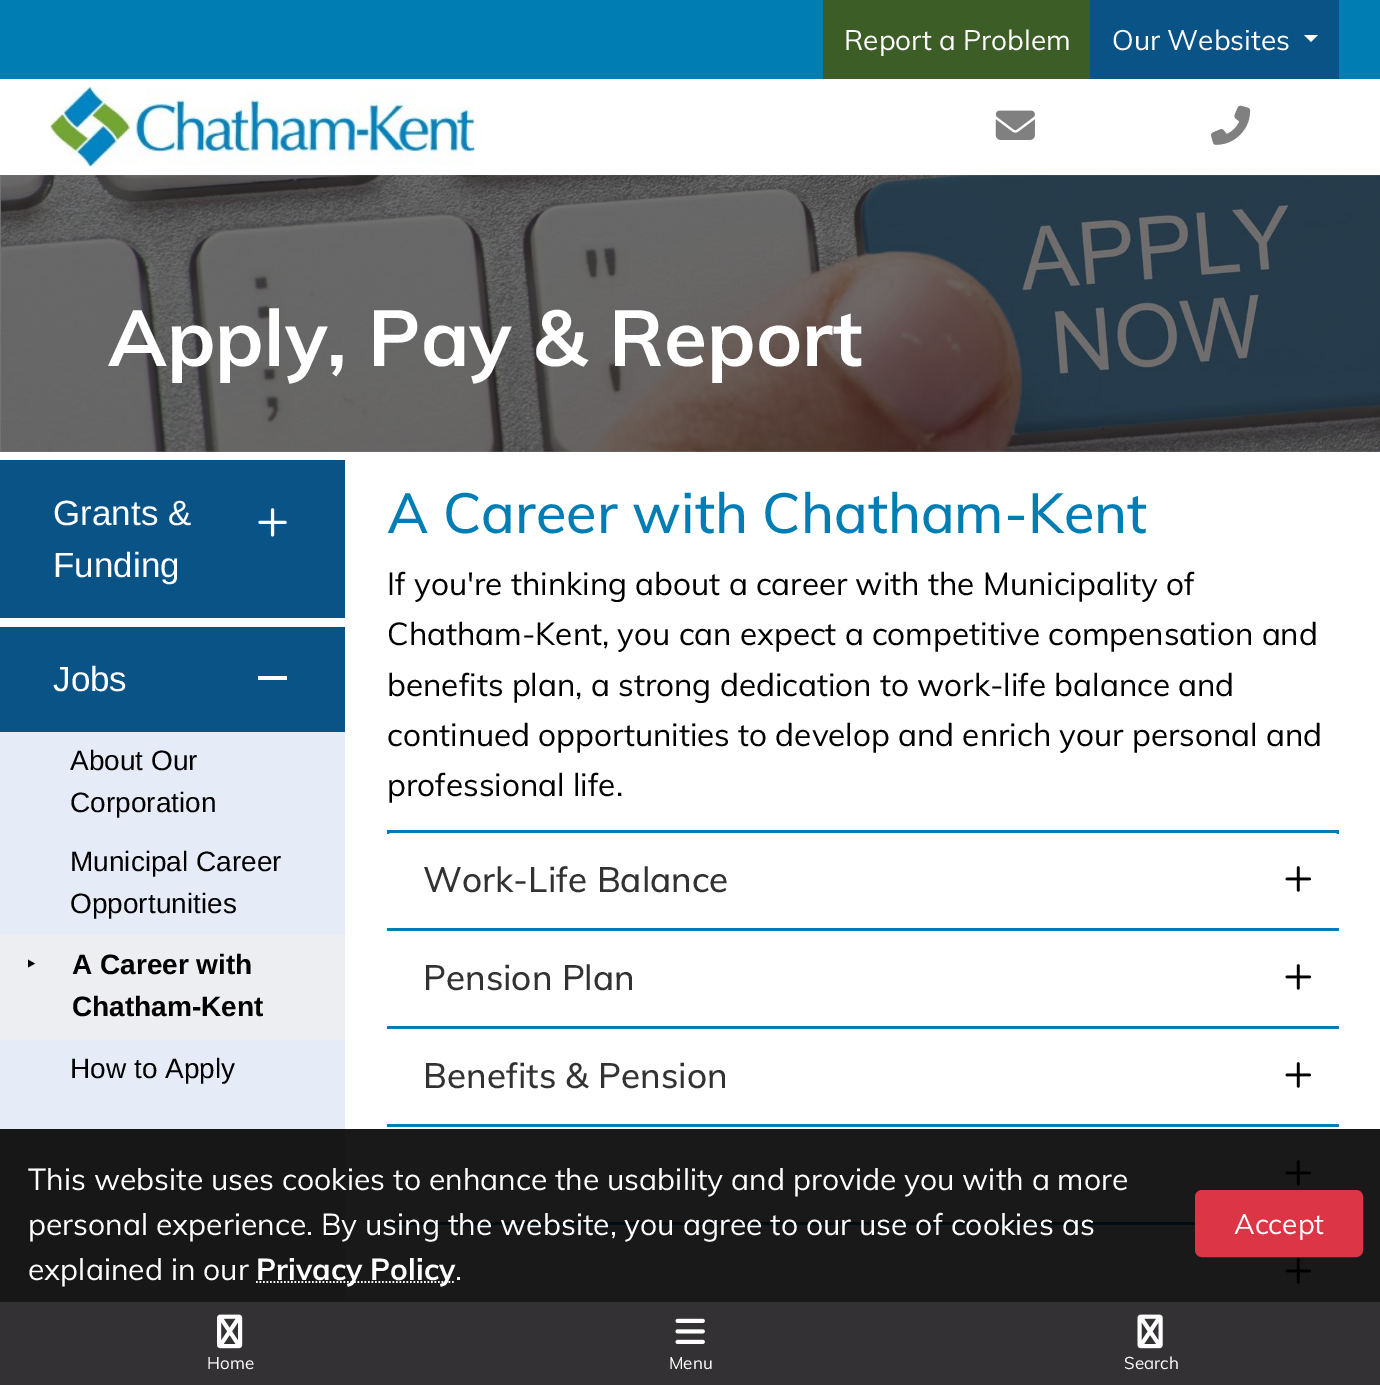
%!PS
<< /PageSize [1380 1385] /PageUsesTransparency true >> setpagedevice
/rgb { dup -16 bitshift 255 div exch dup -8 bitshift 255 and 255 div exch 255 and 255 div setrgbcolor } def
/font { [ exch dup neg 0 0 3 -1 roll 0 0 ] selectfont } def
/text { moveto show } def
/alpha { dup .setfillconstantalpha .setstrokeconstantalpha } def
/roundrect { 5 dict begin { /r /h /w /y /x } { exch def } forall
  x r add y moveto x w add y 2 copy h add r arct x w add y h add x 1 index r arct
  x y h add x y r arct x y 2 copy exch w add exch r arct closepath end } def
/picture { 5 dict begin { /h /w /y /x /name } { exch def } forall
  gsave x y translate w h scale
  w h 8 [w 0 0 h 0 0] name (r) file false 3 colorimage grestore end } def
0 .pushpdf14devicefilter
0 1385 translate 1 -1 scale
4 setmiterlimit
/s1 { /Muli-Regular 28 font 16#FFFFFF rgb } def
/s2 { /Muli-Bold 78.5 font 16#FFFFFF rgb } def
/s3 { /LiberationSans-Regular 35 font 16#FFFFFF rgb } def
/s4 { /LiberationSans-Regular 28 font 16#000000 rgb } def
/s5 { /NotoSans-Regular 28 font 16#000000 rgb } def
/s6 { /LiberationSans-Bold 28 font 16#000000 rgb } def
/s7 { /Muli-Medium 56 font 16#007DB3 rgb } def
/s8 { /Muli-Regular 31.5 font 16#000000 rgb } def
/s9 { /Muli-Medium 35 font 16#333133 rgb } def
/s10 { /Muli-Regular 17 font 16#FFFFFF rgb } def
/s11 { /Muli-Regular 30.05 font 16#FFFFFF rgb } def
/s12 { /Muli-Bold 30.05 font 16#FFFFFF rgb } def
16#FFFFFF rgb
0 0 1380 1385 rectfill
16#757575 rgb
0 175 1380 277 rectfill
16#007DB3 rgb
0 0 1380 79 rectfill
16#3C5E26 rgb
823 0 267 79 rectfill
s1
(Report a Problem) 844 50 text
16#0A5387 rgb
1090 0 249 79 rectfill
s1
(Our Websites) 1112 50 text
1304 35 moveto 1318 35 lineto 1311 42 lineto closepath fill
(pic1.raw) 50 87 425 80 picture
(pic2.raw) 995 110 40 30 picture
(pic3.raw) 1211 105 40 40 picture
(pic4.raw) 0 175 1380 277 picture
s2
(Apply, Pay & Report) 108 366 text
16#0A5387 rgb
0 460 345 158 rectfill
s3
(Grants &) 53 525 text
(Funding) 53 577 text
(pic5.raw) 258 508 29 29 picture
16#0A5387 rgb
0 627 345 105 rectfill
s3
(Jobs) 53 691 text
258 676 29 4 rectfill
16#E6ECF7 rgb
0 732 345 570 rectfill
s4
(About Our) 70 770 text
(Corporation) 70 812 text
(Municipal Career) 70 871 text
(Opportunities) 70 913 text
16#EDEEF1 rgb
0 935 345 105 rectfill
s5
(‣) 26 974 text
s6
(A Career with) 72 974 text
(Chatham-Kent) 72 1016 text
s4
(How to Apply) 70 1078 text
s7
(A Career with Chatham-Kent) 387 533 text
s8
(If you're thinking about a career with the Municipality of) 387 595 text
(Chatham-Kent, you can expect a competitive compensation and) 387 645 text
(benefits plan, a strong dedication to work-life balance and) 387 696 text
(continued opportunities to develop and enrich your personal and) 387 746 text
(professional life.) 387 796 text
16#007DB3 rgb
387 830 952 4 rectfill
16#FFFFFF rgb
392 833 moveto 1334 833 lineto 1337 833 1339 835 1339 838 curveto 1339 928 lineto 387 928 lineto 387 838 lineto 387 835 389 833 392 833 curveto closepath fill
s9
(Work-Life Balance) 423 892 text
(pic6.raw) 1285 866 26 26 picture
16#007DB3 rgb
387 928 952 3 rectfill
s9
(Pension Plan) 423 990 text
(pic6.raw) 1285 964 26 26 picture
16#007DB3 rgb
387 1026 952 3 rectfill
s9
(Benefits & Pension) 423 1088 text
(pic6.raw) 1285 1062 26 26 picture
16#007DB3 rgb
387 1124 952 3 rectfill
(pic6.raw) 1285 1160 26 26 picture
387 1222 808 3 rectfill
(pic6.raw) 1285 1258 26 26 picture
16#333133 rgb
0 1302 1380 83 rectfill
(pic7.raw) 217 1314 26 35 picture
s10
(Home) 207 1369 text
(pic8.raw) 675 1318 30 26 picture
(Menu) 669 1369 text
(pic9.raw) 1137 1314 26 35 picture
(Search) 1124 1369 text
0.9 alpha
16#000000 rgb
0 1129 1380 173 rectfill
1 alpha
s11
(This website uses cookies to enhance the usability and provide you with a more) 28 1190 text
(personal experience. By using the website, you agree to our use of cookies as) 28 1235 text
16#DC3545 rgb
1196 1191 166 65 6 roundrect gsave fill grestore
2 setlinewidth
stroke
s1
(Accept) 1234 1234 text
s11
(explained in our) 28 1280 text
1.8 setlinewidth
[1.75 1.75] 0 setdash
256 1282 moveto 455 1282 lineto stroke
s12
(Privacy Policy) 256 1280 text
s11
(.) 455 1280 text
.poppdf14devicefilter showpage
